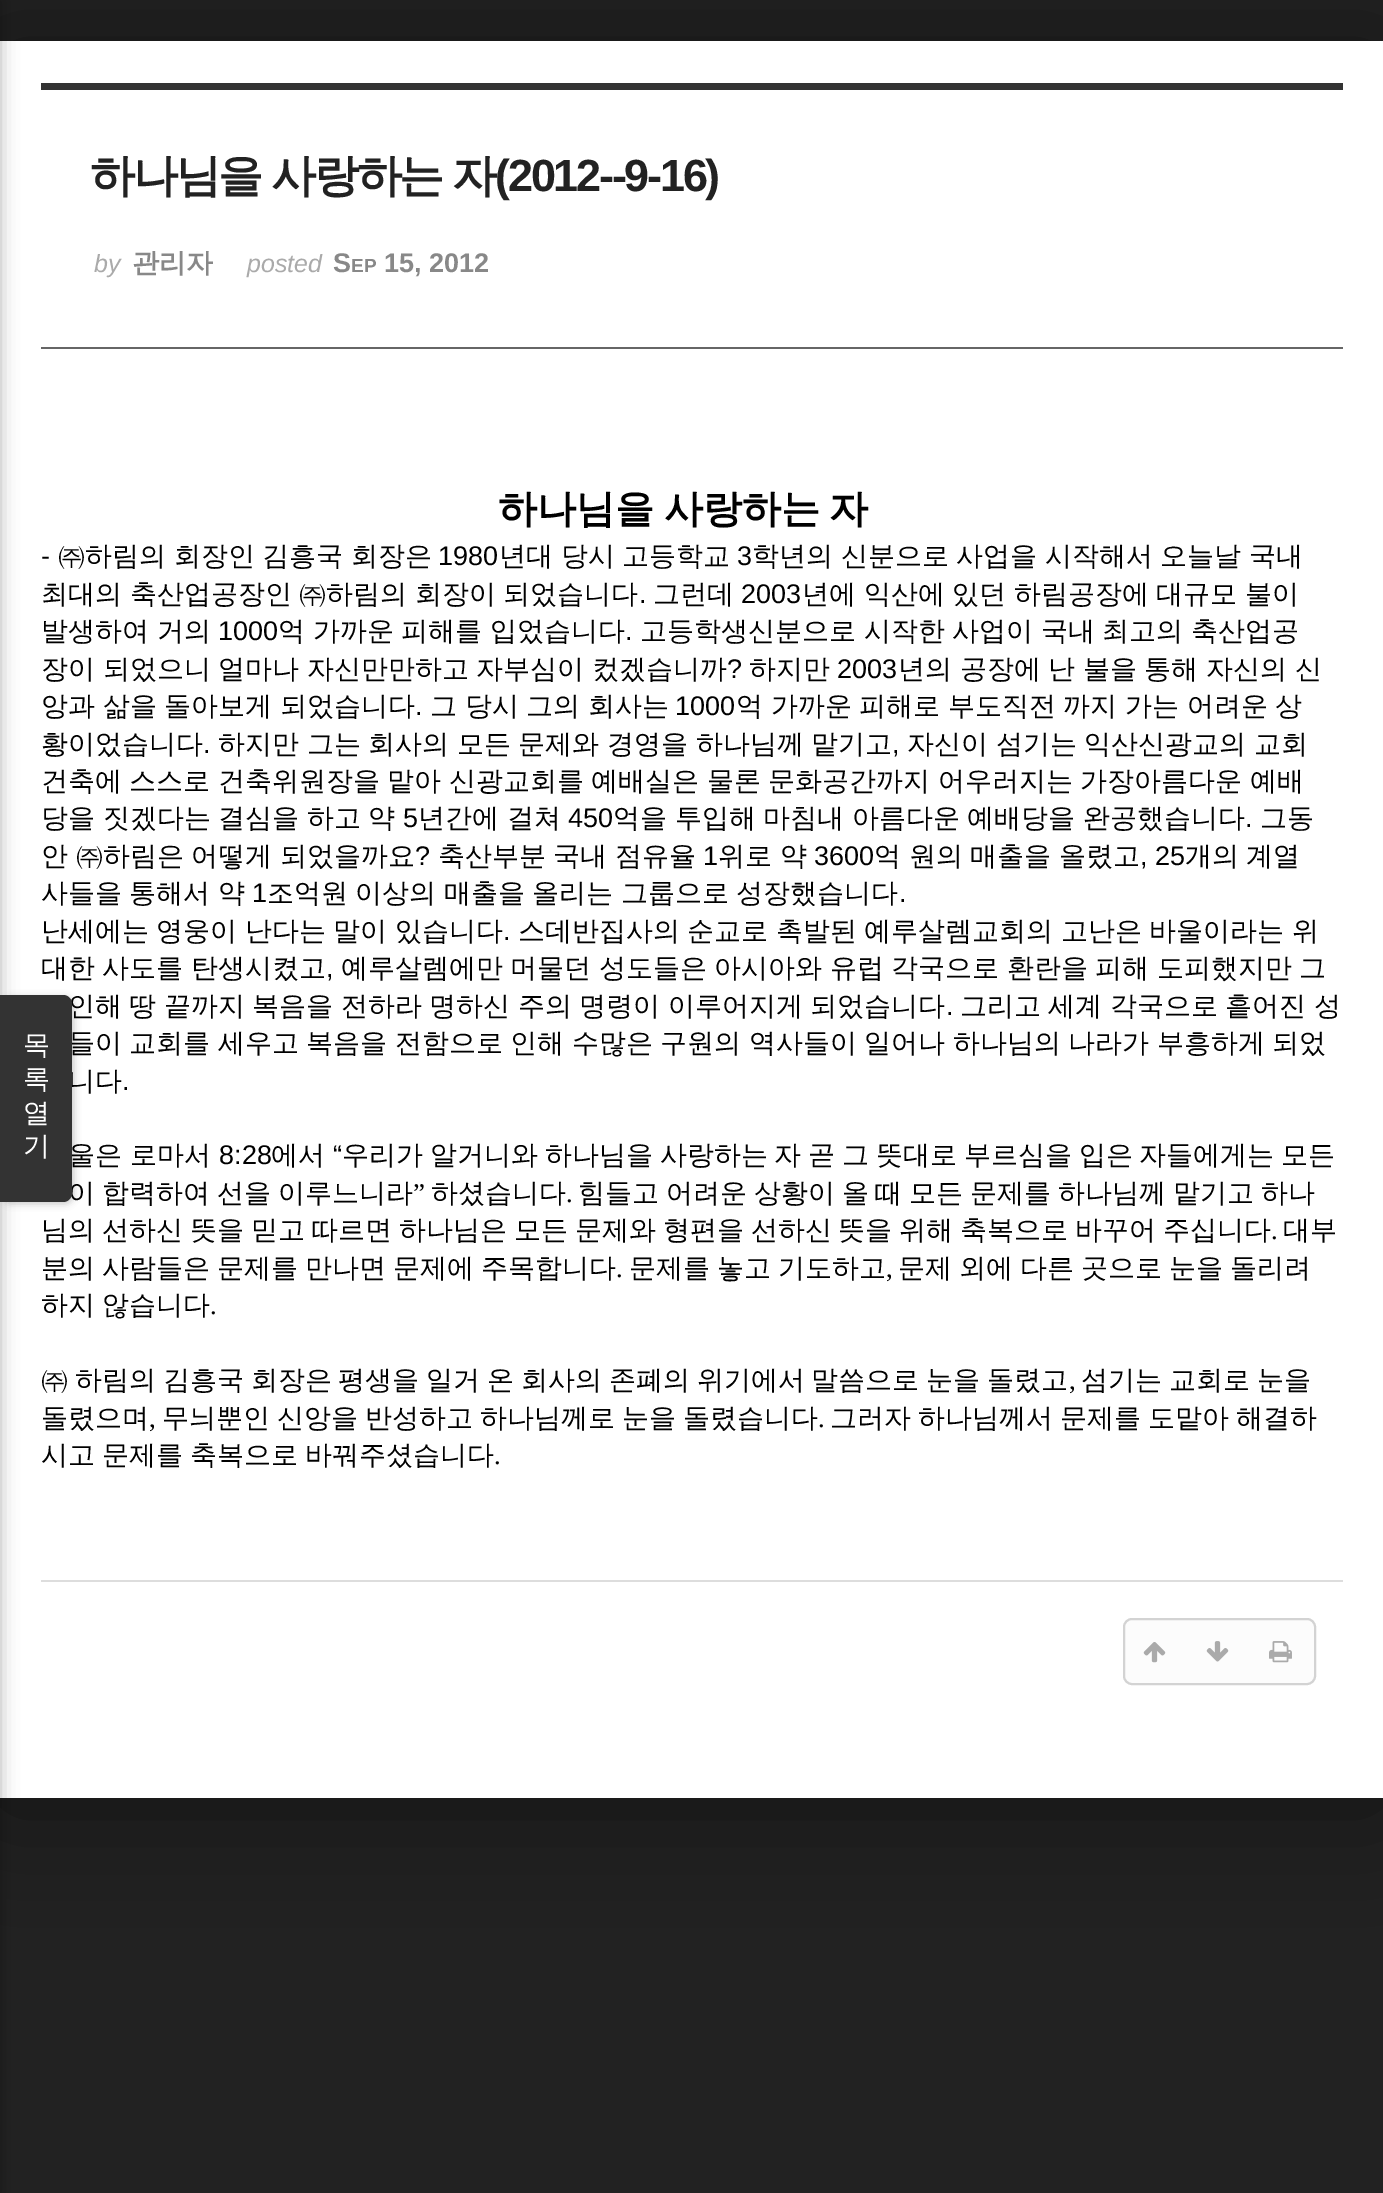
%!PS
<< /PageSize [1383 2193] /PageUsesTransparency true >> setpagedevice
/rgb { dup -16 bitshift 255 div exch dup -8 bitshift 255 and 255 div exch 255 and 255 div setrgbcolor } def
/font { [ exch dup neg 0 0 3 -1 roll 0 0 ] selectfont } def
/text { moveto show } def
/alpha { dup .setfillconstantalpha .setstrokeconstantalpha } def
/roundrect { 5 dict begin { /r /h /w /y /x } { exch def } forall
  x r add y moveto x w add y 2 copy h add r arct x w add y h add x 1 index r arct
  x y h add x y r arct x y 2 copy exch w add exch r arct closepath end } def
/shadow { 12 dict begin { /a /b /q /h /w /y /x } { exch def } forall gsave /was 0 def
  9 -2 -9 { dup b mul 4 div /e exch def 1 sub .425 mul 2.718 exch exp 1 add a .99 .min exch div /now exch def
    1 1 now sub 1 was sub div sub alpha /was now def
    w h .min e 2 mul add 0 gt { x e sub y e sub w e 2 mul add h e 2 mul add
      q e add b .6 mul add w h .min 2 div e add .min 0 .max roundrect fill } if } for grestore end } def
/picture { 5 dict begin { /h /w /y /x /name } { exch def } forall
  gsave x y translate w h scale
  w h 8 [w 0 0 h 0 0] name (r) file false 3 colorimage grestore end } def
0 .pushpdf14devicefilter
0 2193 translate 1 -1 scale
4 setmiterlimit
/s1 { /WenQuanYiZenHei-Medium 27 font 16#000000 rgb } def
/s2 { /WenQuanYiZenHei-Medium 27 font 16#FFFFFF rgb } def
/s3 { /LiberationSans-Italic 25 font 16#AAAAAA rgb } def
/s4 { /WenQuanYiZenHei-Bold 27 font 16#888888 rgb } def
/s5 { /LiberationSans-Bold 27 font 16#888888 rgb } def
/s6 { /LiberationSans-Bold 19 font 16#888888 rgb } def
/s7 { /LiberationSans-Regular 27 font 16#000000 rgb } def
/s8 { /LiberationSerif-Regular 27 font 16#000000 rgb } def
16#222222 rgb
0 0 1383 2193 rectfill
16#000000 rgb
0 50 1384 1757 0 54 0.5 shadow
16#FFFFFF rgb
0 41 1383 1757 rectfill
16#000000 rgb
-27 0 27 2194 0 9 0.3 shadow
2 997 72 207 9 3.5 0.2 shadow
/WenQuanYiZenHei-Medium 27 font
68 1015 moveto -0.6 0 32 (인해 땅 끝까지 복음을 전하라 명하신 주의 명령이 이루어지게 되었습니다) widthshow
68 1052 moveto -0.6 0 32 (들이 교회를 세우고 복음을 전함으로 인해 수많은 구원의 역사들이 일어나 하나님의 나라가 부흥하게 되었) widthshow
(니다) 68 1090 text
(울은 로마서) 68 1164 text
68 1202 moveto -1.25 0 32 (이 합력하여 선을 이루느니라) widthshow
16#333333 rgb
0 995 moveto 63 995 lineto 68 995 72 999 72 1004 curveto 72 1193 lineto 72 1198 68 1202 63 1202 curveto 0 1202 lineto closepath fill
s2
(목) 23 1054 text
(록) 23 1088 text
(열) 23 1122 text
(기) 23 1155 text
16#333333 rgb
41 83 1302 7 rectfill
16#666666 rgb
41 347 1302 2 rectfill
/WenQuanYiZenHei-Bold 45 font
16#222222 rgb
90 191 moveto -1 0 32 -2.25 0 (하나님을 사랑하는 자) awidthshow
/LiberationSans-Bold 45 font
495 191 moveto -2.25 0 (\(2012--9-16\)) ashow
s3
(by) 94 272 text
s4
(관리자) 132 272 text
s3
(posted) 247 272 text
s5
(S) 333 272 text
s6
(EP) 351 272 text
s5
(15, 2012) 384 272 text
/WenQuanYiZenHei-Bold 39 font
16#000000 rgb
498 522 moveto -2 0 32 (하나님을 사랑하는 자) widthshow
s7
(-) 41 565 text
/WenQuanYiZenHei-Medium 27 font
58 565 moveto -0.5 0 32 (㈜하림의 회장인 김흥국 회장은) widthshow
s7
(1980) 438 565 text
/WenQuanYiZenHei-Medium 27 font
499 565 moveto -0.5 0 32 (년대 당시 고등학교) widthshow
s7
(3) 737 565 text
/WenQuanYiZenHei-Medium 27 font
752 565 moveto -0.5 0 32 (학년의 신분으로 사업을 시작해서 오늘날 국내) widthshow
41 603 moveto -0.5 0 32 (최대의 축산업공장인 ㈜하림의 회장이 되었습니다) widthshow
s7
(.) 639 603 text
s1
(그런데) 653 603 text
s7
(2003) 741 603 text
/WenQuanYiZenHei-Medium 27 font
802 603 moveto -0.5 0 32 (년에 익산에 있던 하림공장에 대규모 불이) widthshow
41 640 moveto -0.5 0 32 (발생하여 거의) widthshow
s7
(1000) 218 640 text
/WenQuanYiZenHei-Medium 27 font
278 640 moveto -0.5 0 32 (억 가까운 피해를 입었습니다) widthshow
s7
(.) 625 640 text
/WenQuanYiZenHei-Medium 27 font
640 640 moveto -0.5 0 32 (고등학생신분으로 시작한 사업이 국내 최고의 축산업공) widthshow
41 678 moveto -0.5 0 32 (장이 되었으니 얼마나 자신만만하고 자부심이 컸겠습니까) widthshow
s7
(?) 727 678 text
s1
(하지만) 749 678 text
s7
(2003) 837 678 text
/WenQuanYiZenHei-Medium 27 font
898 678 moveto -0.5 0 32 (년의 공장에 난 불을 통해 자신의 신) widthshow
41 715 moveto -0.5 0 32 (앙과 삶을 돌아보게 되었습니다) widthshow
s7
(.) 415 715 text
/WenQuanYiZenHei-Medium 27 font
430 715 moveto -0.5 0 32 (그 당시 그의 회사는) widthshow
s7
(1000) 675 715 text
/WenQuanYiZenHei-Medium 27 font
736 715 moveto -0.5 0 32 (억 가까운 피해로 부도직전 까지 가는 어려운 상) widthshow
(황이었습니다) 41 753 text
s7
(.) 203 753 text
/WenQuanYiZenHei-Medium 27 font
218 753 moveto -0.5 0 32 (하지만 그는 회사의 모든 문제와 경영을 하나님께 맡기고) widthshow
s7
(,) 892 753 text
/WenQuanYiZenHei-Medium 27 font
907 753 moveto -0.5 0 32 (자신이 섬기는 익산신광교의 교회) widthshow
41 790 moveto -0.6 0 32 (건축에 스스로 건축위원장을 맡아 신광교회를 예배실은 물론 문화공간까지 어우러지는 가장아름다운 예배) widthshow
41 827 moveto -0.5 0 32 (당을 짓겠다는 결심을 하고 약) widthshow
s7
(5) 403 827 text
/WenQuanYiZenHei-Medium 27 font
418 827 moveto -0.5 0 32 (년간에 걸쳐) widthshow
s7
(450) 568 827 text
/WenQuanYiZenHei-Medium 27 font
613 827 moveto -0.5 0 32 (억을 투입해 마침내 아름다운 예배당을 완공했습니다) widthshow
s7
(.) 1245 827 text
s1
(그동) 1260 827 text
(안) 41 865 text
(㈜하림은) 76 865 text
(어떻게) 191 865 text
(되었을까요) 280 865 text
s7
(?) 415 865 text
s1
(축산부분) 438 865 text
(국내) 553 865 text
(점유율) 615 865 text
s7
(1) 703 865 text
s1
(위로) 718 865 text
(약) 780 865 text
s7
(3600) 814 865 text
s1
(억) 874 865 text
(원의) 909 865 text
(매출을) 970 865 text
(올렸고) 1059 865 text
s7
(, 25) 1140 865 text
s1
(개의) 1185 865 text
(계열) 1246 865 text
41 902 moveto -0.6 0 32 (사들을 통해서 약) widthshow
s7
(1) 252 902 text
/WenQuanYiZenHei-Medium 27 font
267 902 moveto -0.6 0 32 (조억원 이상의 매출을 올리는 그룹으로 성장했습니다) widthshow
s7
(.) 899 902 text
/WenQuanYiZenHei-Medium 27 font
41 940 moveto -0.6 0 32 (난세에는 영웅이 난다는 말이 있습니다) widthshow
s7
(.) 503 940 text
/WenQuanYiZenHei-Medium 27 font
518 940 moveto -0.6 0 32 (스데반집사의 순교로 촉발된 예루살렘교회의 고난은 바울이라는 위) widthshow
41 977 moveto -0.6 0 32 (대한 사도를 탄생시켰고) widthshow
s7
(,) 326 977 text
/WenQuanYiZenHei-Medium 27 font
341 977 moveto -0.6 0 32 (예루살렘에만 머물던 성도들은 아시아와 유럽 각국으로 환란을 피해 도피했지만 그) widthshow
s7
(.) 946 1015 text
/WenQuanYiZenHei-Medium 27 font
960 1015 moveto -0.6 0 32 (그리고 세계 각국으로 흩어진 성) widthshow
s7
(.) 122 1090 text
(8:28) 219 1164 text
s1
(에서) 271 1164 text
s7
(“) 333 1164 text
/WenQuanYiZenHei-Medium 27 font
342 1164 moveto -1.25 0 32 (우리가 알거니와 하나님을 사랑하는 자 곧 그 뜻대로 부르심을 입은 자들에게는 모든) widthshow
s8
(”) 413 1202 text
s1
(하셨습니다) 431 1202 text
578 1202 moveto -1.25 0 32 (힘들고 어려운 상황이 올 때 모든 문제를 하나님께 맡기고 하나) widthshow
s8
(.) 566 1202 text
/WenQuanYiZenHei-Medium 27 font
41 1239 moveto -1.25 0 32 (님의 선하신 뜻을 믿고 따르면 하나님은 모든 문제와 형편을 선하신 뜻을 위해 축복으로 바꾸어 주십니다) widthshow
s8
(.) 1271 1239 text
s1
(대부) 1283 1239 text
41 1277 moveto -1 0 32 (분의 사람들은 문제를 만나면 문제에 주목합니다) widthshow
s8
(.) 616 1277 text
/WenQuanYiZenHei-Medium 27 font
629 1277 moveto -1 0 32 (문제를 놓고 기도하고) widthshow
s8
(,) 886 1277 text
/WenQuanYiZenHei-Medium 27 font
898 1277 moveto -1 0 32 (문제 외에 다른 곳으로) widthshow
1169 1277 moveto -1.25 0 32 (눈을 돌리려) widthshow
41 1314 moveto -1.25 0 32 (하지 않습니다) widthshow
s8
(.) 210 1314 text
/WenQuanYiZenHei-Medium 27 font
41 1389 moveto -1.25 0 32 (㈜ 하림의 김흥국 회장은 평생을 일거 온 회사의 존폐의 위기에서 말씀으로 눈을 돌렸고) widthshow
s8
(,) 1069 1389 text
/WenQuanYiZenHei-Medium 27 font
1081 1389 moveto -1.25 0 32 (섬기는 교회로 눈을) widthshow
(돌렸으며) 41 1427 text
s8
(,) 149 1427 text
/WenQuanYiZenHei-Medium 27 font
162 1427 moveto -1 0 32 (무늬뿐인 신앙을 반성하고 하나님께로 눈을 돌렸습니다) widthshow
s8
(.) 818 1427 text
/WenQuanYiZenHei-Medium 27 font
830 1427 moveto -1 0 32 (그러자 하나님께서 문제를 도맡아 해결하) widthshow
41 1464 moveto -1.25 0 32 (시고 문제를 축복으로 바꿔주셨습니다) widthshow
s8
(.) 494 1464 text
16#DDDDDD rgb
41 1580 1302 2 rectfill
16#FCFCFC rgb
1124 1619 191 65 8 roundrect gsave fill grestore
16#D3D3D3 rgb
2 setlinewidth
stroke
(pic1.raw) 1143 1642 23 21 picture
(pic2.raw) 1206 1641 23 21 picture
(pic3.raw) 1269 1641 23 22 picture
.poppdf14devicefilter showpage
